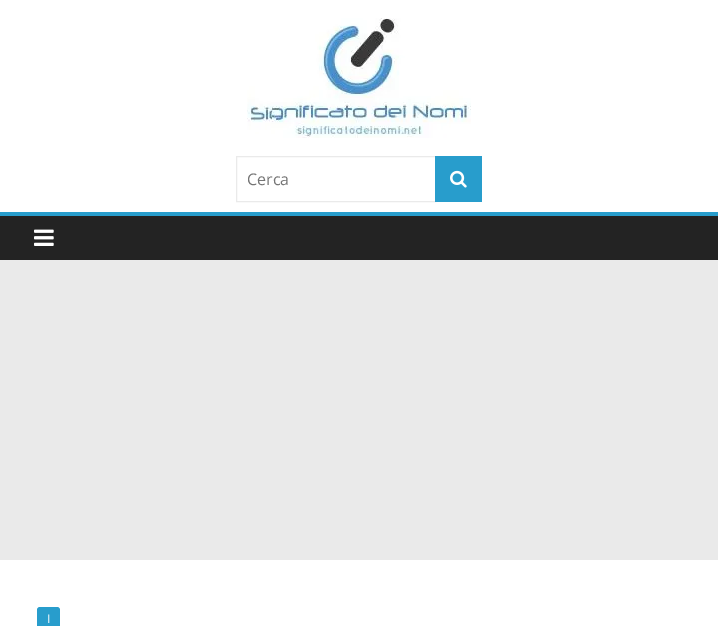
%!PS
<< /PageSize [718 626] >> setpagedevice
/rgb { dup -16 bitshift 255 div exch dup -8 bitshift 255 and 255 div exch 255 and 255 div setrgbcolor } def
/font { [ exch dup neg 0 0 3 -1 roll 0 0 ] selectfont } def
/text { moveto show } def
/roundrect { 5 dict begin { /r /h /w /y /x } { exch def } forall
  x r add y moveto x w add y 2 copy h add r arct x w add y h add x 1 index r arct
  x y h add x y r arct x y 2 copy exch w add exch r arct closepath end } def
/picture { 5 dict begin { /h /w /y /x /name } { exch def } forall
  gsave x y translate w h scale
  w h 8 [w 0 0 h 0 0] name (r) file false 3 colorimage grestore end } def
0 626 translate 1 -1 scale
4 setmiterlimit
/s1 { /OpenSans-Regular 16 font 16#757575 rgb } def
/s2 { /OpenSans-Regular 12 font 16#FFFFFF rgb } def
16#EAEAEA rgb
0 0 718 626 rectfill
16#FFFFFF rgb
0 0 718 212 rectfill
(pic1.raw) 247 18 224 120 picture
16#EAEAEA rgb
236.5 156.5 199 45 rectstroke
s1
(Cerca) 247 185 text
16#289DCC rgb
435 156 47 46 rectfill
(pic2.raw) 450 170 17 18 picture
16#232323 rgb
0 216 718 44 rectfill
16#289DCC rgb
0 212 718 4 rectfill
(pic3.raw) 34 229 20 17 picture
16#FFFFFF rgb
0 560 718 66 rectfill
16#289DCC rgb
37 607 23 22 3 roundrect fill
s2
(I) 47 623 text
showpage
